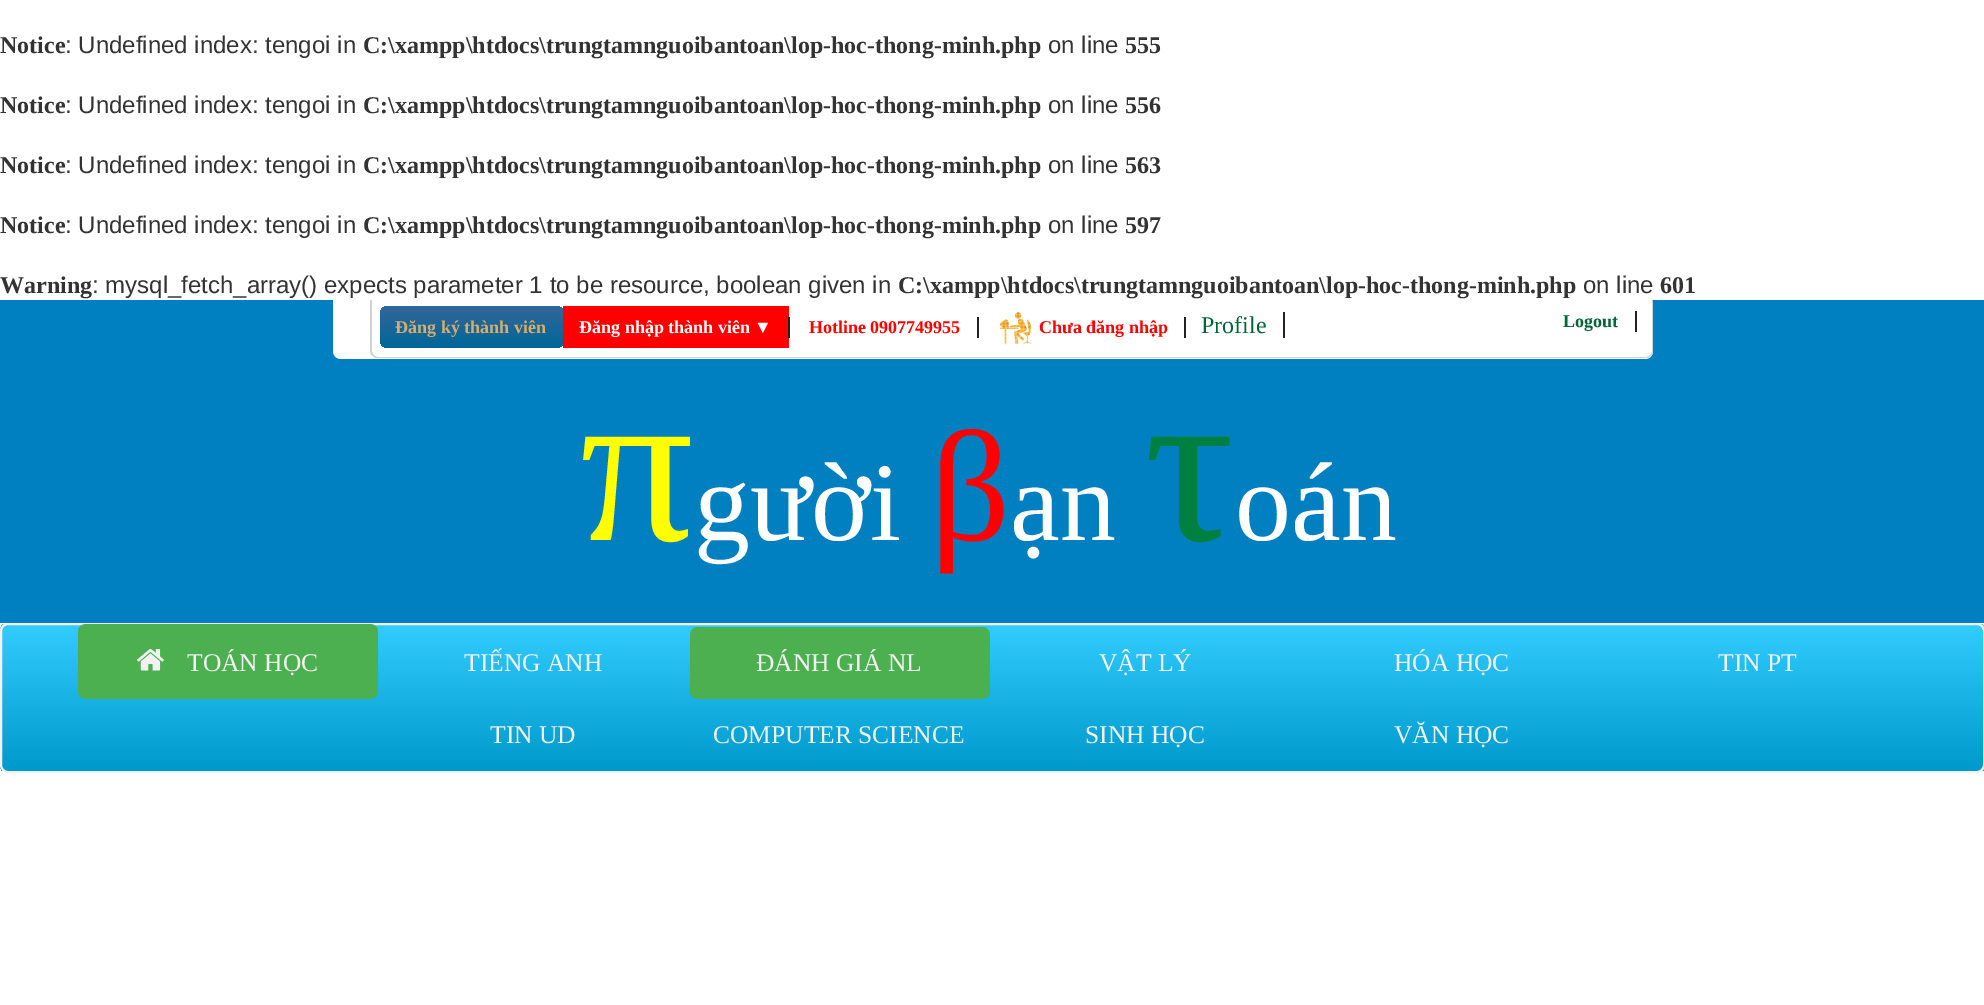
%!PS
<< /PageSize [1984 1005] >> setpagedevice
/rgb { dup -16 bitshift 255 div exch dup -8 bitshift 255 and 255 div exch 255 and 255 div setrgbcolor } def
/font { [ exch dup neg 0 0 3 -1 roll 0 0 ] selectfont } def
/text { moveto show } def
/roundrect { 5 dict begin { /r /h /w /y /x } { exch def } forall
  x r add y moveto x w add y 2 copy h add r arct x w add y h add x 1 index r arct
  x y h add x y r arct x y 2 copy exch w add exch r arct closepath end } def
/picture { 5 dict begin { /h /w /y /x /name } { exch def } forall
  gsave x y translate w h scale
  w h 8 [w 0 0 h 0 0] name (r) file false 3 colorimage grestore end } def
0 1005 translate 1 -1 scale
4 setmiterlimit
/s1 { /LiberationSerif-Bold 24 font 16#333333 rgb } def
/s2 { /LiberationSans-Regular 24 font 16#333333 rgb } def
/s3 { /LiberationSerif-Bold 18 font 16#DBAC69 rgb } def
/s4 { /LiberationSerif-Bold 18 font 16#FFFFFF rgb } def
/s5 { /LiberationSerif-Regular 18 font 16#FFFFFF rgb } def
/s6 { /LiberationSerif-Bold 18 font 16#FF0000 rgb } def
/s7 { /LiberationSerif-Regular 24 font 16#006633 rgb } def
/s8 { /LiberationSerif-Bold 18 font 16#006633 rgb } def
/s9 { /LiberationSerif-Regular 225 font 16#FFFF00 rgb } def
/s10 { /LiberationSerif-Regular 112 font 16#FFFFFF rgb } def
/s11 { /LiberationSerif-Regular 158 font 16#FF0000 rgb } def
/s12 { /LiberationSerif-Regular 225 font 16#008040 rgb } def
/s13 { /LiberationSerif-Regular 25.5 font 16#F2F2F2 rgb } def
16#FFFFFF rgb
0 0 1984 1005 rectfill
s1
(Notice) 0 53 text
s2
(: Undefined index: tengoi in) 65 53 text
s1
(C:\\xampp\\htdocs\\trungtamnguoibantoan\\lop-hoc-thong-minh.php) 363 53 text
s2
(on line) 1048 53 text
s1
(555) 1125 53 text
(Notice) 0 113 text
s2
(: Undefined index: tengoi in) 65 113 text
s1
(C:\\xampp\\htdocs\\trungtamnguoibantoan\\lop-hoc-thong-minh.php) 363 113 text
s2
(on line) 1048 113 text
s1
(556) 1125 113 text
(Notice) 0 173 text
s2
(: Undefined index: tengoi in) 65 173 text
s1
(C:\\xampp\\htdocs\\trungtamnguoibantoan\\lop-hoc-thong-minh.php) 363 173 text
s2
(on line) 1048 173 text
s1
(563) 1125 173 text
(Notice) 0 233 text
s2
(: Undefined index: tengoi in) 65 233 text
s1
(C:\\xampp\\htdocs\\trungtamnguoibantoan\\lop-hoc-thong-minh.php) 363 233 text
s2
(on line) 1048 233 text
s1
(597) 1125 233 text
(Warning) 0 293 text
s2
(: mysql_fetch_array\(\) expects parameter 1 to be resource, boolean given in) 92 293 text
s1
(C:\\xampp\\htdocs\\trungtamnguoibantoan\\lop-hoc-thong-minh.php) 898 293 text
s2
(on line) 1583 293 text
s1
(601) 1660 293 text
16#0080C0 rgb
0 300 1984 323 rectfill
16#FFFFFF rgb
333 300 moveto 1653 300 lineto 1653 351 lineto 1653 355.5 1649.5 359 1645 359 curveto 341 359 lineto 336.5 359 333 355.5 333 351 curveto closepath fill
16#D2D2D2 rgb
370 300 moveto 1653 300 lineto 1653 351 lineto 1653 355 1650 358 1646 358 curveto 378 358 lineto 374 358 370 355 370 351 curveto closepath 372 300 moveto 1652 300 lineto 1652 351 lineto 1652 354 1649 357 1646 357 curveto 378 357 lineto 375 357 372 354 372 351 curveto closepath eofill
gsave 380 306 184 42 8 roundrect clip newpath
<< /ShadingType 2 /ColorSpace /DeviceRGB /Coords [472 306 472 348] /Extend [true true] /Function << /FunctionType 2 /Domain [0 1] /C0 [0.2 0.4 0.6] /C1 [0 0.4 0.6] /N 1 >> >> shfill grestore
s3
(Đăng ký thành viên) 395 333 text
16#FF0000 rgb
563 306 226 42 rectfill
s4
(Đăng nhập thành viên) 579 333 text
s5
(▼) 754 333 text
16#222222 rgb
788 317 2 21 rectfill
s6
(Hotline 0907749955) 809 333 text
16#222222 rgb
977 317 2 21 rectfill
(pic1.raw) 1000 312 32 33 picture
s6
(Chưa đăng nhập) 1039 333 text
16#222222 rgb
1184 317 2 21 rectfill
s7
(Profile) 1201 333 text
16#222222 rgb
1283 312 2 26 rectfill
s8
(Logout) 1563 327 text
16#222222 rgb
1635 311 2 21 rectfill
s9
(π) 580 540 text
s10
(gười) 694 540 text
s11
(β) 930 540 text
s10
(ạn) 1010 540 text
s12
(τ) 1144 540 text
s10
(oán) 1235 540 text
gsave
0 623 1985 150 8 roundrect clip newpath
gsave 0 624 moveto 1984 624 lineto 1984 771 lineto 0 771 lineto closepath clip newpath
<< /ShadingType 2 /ColorSpace /DeviceRGB /Coords [992 624 992 771] /Extend [true true] /Function << /FunctionType 2 /Domain [0 1] /C0 [0.2 0.8 1] /C1 [0 0.6 0.8] /N 1 >> >> shfill grestore
grestore
16#F2F2F2 rgb
2 setlinewidth
1 624 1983 148 7 roundrect stroke
16#4CAF50 rgb
78 624 300 75 8 roundrect fill
(pic2.raw) 137 649 27 22 picture
s13
(TOÁN HỌC) 187 671 text
(TIẾNG ANH) 464 671 text
16#4CAF50 rgb
690 627 300 72 8 roundrect fill
s13
(ĐÁNH GIÁ NL) 756 671 text
(VẬT LÝ) 1099 671 text
(HÓA HỌC) 1394 671 text
(TIN PT) 1718 671 text
(TIN UD) 490 743 text
(COMPUTER SCIENCE) 713 743 text
(SINH HỌC) 1085 743 text
(VĂN HỌC) 1394 743 text
showpage
